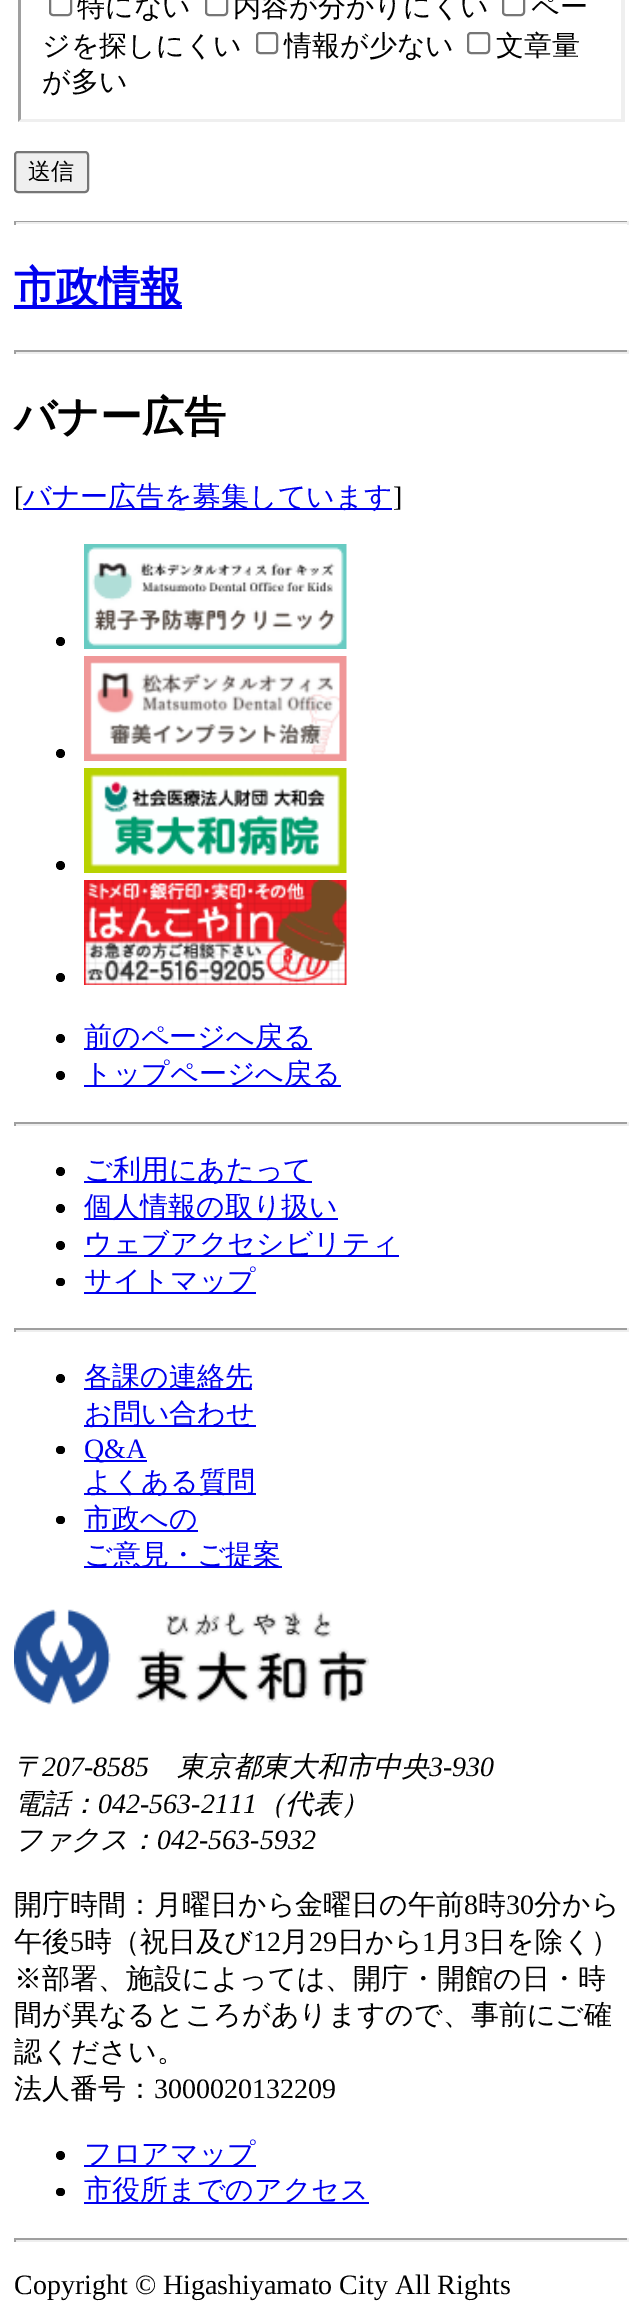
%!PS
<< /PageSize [641 2316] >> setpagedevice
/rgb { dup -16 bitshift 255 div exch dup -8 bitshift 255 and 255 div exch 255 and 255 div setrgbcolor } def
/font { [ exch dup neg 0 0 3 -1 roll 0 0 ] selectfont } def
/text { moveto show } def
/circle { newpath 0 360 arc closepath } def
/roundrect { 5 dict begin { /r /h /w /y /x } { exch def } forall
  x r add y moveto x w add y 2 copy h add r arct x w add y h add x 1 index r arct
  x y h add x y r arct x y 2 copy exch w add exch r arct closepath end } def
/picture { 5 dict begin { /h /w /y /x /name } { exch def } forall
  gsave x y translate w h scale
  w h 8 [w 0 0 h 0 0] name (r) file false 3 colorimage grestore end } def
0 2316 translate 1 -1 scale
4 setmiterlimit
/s1 { /WenQuanYiZenHei-Medium 28 font 16#000000 rgb } def
/s2 { /WenQuanYiZenHei-Medium 23 font 16#000000 rgb } def
/s3 { /WenQuanYiZenHei-Bold 42 font 16#0000EE rgb } def
/s4 { /WenQuanYiZenHei-Bold 42 font 16#000000 rgb } def
/s5 { /LiberationSerif-Regular 28 font 16#000000 rgb } def
/s6 { /WenQuanYiZenHei-Medium 28 font 16#0000EE rgb } def
/s7 { /LiberationSerif-Regular 28 font 16#0000EE rgb } def
/s8 { /WenQuanYiZenHei-MediumItalic 28 font 16#000000 rgb } def
/s9 { /LiberationSerif-Italic 28 font 16#000000 rgb } def
16#FFFFFF rgb
0 0 641 2316 rectfill
16#EFEFEF rgb
625 -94 moveto 625 122 lineto 621 119 lineto 621 -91 lineto closepath fill
625 122 moveto 18 122 lineto 21 119 lineto 621 119 lineto closepath fill
16#9F9F9F rgb
18 122 moveto 18 -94 lineto 21 -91 lineto 21 119 lineto closepath fill
16#767676 rgb
2 setlinewidth
50 -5 21 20 3 roundrect stroke
s1
(特にない) 77 16 text
16#767676 rgb
206 -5 21 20 3 roundrect stroke
s1
(内容が分かりにくい) 233 16 text
16#767676 rgb
503 -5 21 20 3 roundrect stroke
s1
(ペー) 531 16 text
(ジを探しにくい) 42 55 text
16#767676 rgb
257 33 20 20 3 roundrect stroke
s1
(情報が少ない) 284 55 text
16#767676 rgb
468 33 21 20 3 roundrect stroke
s1
(文章量) 496 55 text
(が多い) 42 91 text
16#EFEFEF rgb
15 152 73 40 3 roundrect gsave fill grestore
16#767676 rgb
stroke
s2
(送信) 28 179 text
16#9F9F9F rgb
14 221 614 1 rectfill
16#EEEEEE rgb
627 221 2 4 rectfill
14 222 614 2 rectfill
16#9F9F9F rgb
14 221 2 4 rectfill
16#0000EE rgb
14 305 168 4 rectfill
s3
(市政情報) 14 301 text
16#9F9F9F rgb
14 350 614 2 rectfill
16#EEEEEE rgb
627 350 2 4 rectfill
14 352 614 2 rectfill
16#9F9F9F rgb
14 350 2 4 rectfill
s4
(バナー広告) 14 431 text
s5
([) 14 506 text
16#0000EE rgb
23 508 369 2 rectfill
s6
(バナー広告を募集しています) 23 506 text
s5
(]) 393 506 text
60.5 641.5 4.5 circle fill
(pic1.raw) 84 544 263 105 picture
60.5 753.5 4.5 circle fill
(pic2.raw) 84 656 263 105 picture
60.5 865.5 4.5 circle fill
(pic3.raw) 84 768 263 105 picture
60.5 977.5 4.5 circle fill
(pic4.raw) 84 880 263 105 picture
60.5 1038.5 4.5 circle fill
16#0000EE rgb
84 1048 228 2 rectfill
s6
(前のページへ戻る) 84 1046 text
16#000000 rgb
60.5 1075.5 4.5 circle fill
16#0000EE rgb
84 1085 257 2 rectfill
(トップページへ戻る) 84 1083 text
16#9F9F9F rgb
14 1122 614 2 rectfill
16#EEEEEE rgb
627 1122 2 4 rectfill
14 1124 614 2 rectfill
16#9F9F9F rgb
14 1122 2 4 rectfill
16#000000 rgb
60.5 1171.5 4.5 circle fill
16#0000EE rgb
84 1181 228 2 rectfill
(ご利用にあたって) 84 1179 text
16#000000 rgb
60.5 1208.5 4.5 circle fill
16#0000EE rgb
84 1218 254 2 rectfill
(個人情報の取り扱い) 84 1216 text
16#000000 rgb
60.5 1245.5 4.5 circle fill
16#0000EE rgb
84 1255 315 2 rectfill
(ウェブアクセシビリティ) 84 1253 text
16#000000 rgb
56 1278 9 8 4 roundrect fill
16#0000EE rgb
84 1292 172 2 rectfill
(サイトマップ) 84 1290 text
16#9F9F9F rgb
14 1328 614 2 rectfill
16#EEEEEE rgb
627 1328 2 4 rectfill
14 1330 614 2 rectfill
16#9F9F9F rgb
14 1328 2 4 rectfill
16#000000 rgb
60.5 1378.5 4.5 circle fill
16#0000EE rgb
84 1388 168 2 rectfill
(各課の連絡先) 84 1386 text
84 1425 172 2 rectfill
(お問い合わせ) 84 1423 text
16#000000 rgb
56 1446 9 8 4 roundrect fill
16#0000EE rgb
84 1460 63 2 rectfill
s7
(Q&A) 84 1458 text
84 1493 172 2 rectfill
s6
(よくある質問) 84 1491 text
16#000000 rgb
56 1516 9 8 4 roundrect fill
16#0000EE rgb
84 1530 114 2 rectfill
(市政への) 84 1528 text
84 1566 198 2 rectfill
(ご意見・ご提案) 84 1564 text
(pic5.raw) 14 1609 356 96 picture
s8
(〒) 14 1776 text
s9
(207-8585) 42 1776 text
s8
(東京都東大和市中央) 177 1776 text
s9
(3-930) 429 1776 text
s8
(電話：) 14 1813 text
s9
(042-563-2111) 98 1813 text
s8
(（代表）) 257 1813 text
(ファクス：) 14 1849 text
s9
(042-563-5932) 157 1849 text
s1
(開庁時間：月曜日から金曜日の午前) 14 1914 text
s5
(8) 464 1914 text
s1
(時) 478 1914 text
s5
(30) 506 1914 text
s1
(分から) 534 1914 text
(午後) 14 1951 text
s5
(5) 70 1951 text
s1
(時（祝日及び) 84 1951 text
s5
(12) 253 1951 text
s1
(月) 281 1951 text
s5
(29) 309 1951 text
s1
(日から) 337 1951 text
s5
(1) 422 1951 text
s1
(月) 436 1951 text
s5
(3) 464 1951 text
s1
(日を除く）) 478 1951 text
(※部署、施設によっては、開庁・開館の日・時) 14 1988 text
(間が異なるところがありますので、事前にご確) 14 2024 text
(認ください。) 14 2061 text
(法人番号：) 14 2098 text
s5
(3000020132209) 154 2098 text
60.5 2155.5 4.5 circle fill
16#0000EE rgb
84 2165 172 2 rectfill
s6
(フロアマップ) 84 2163 text
16#000000 rgb
56 2188 9 8 4 roundrect fill
16#0000EE rgb
84 2202 285 2 rectfill
(市役所までのアクセス) 84 2199 text
16#9F9F9F rgb
14 2238 614 2 rectfill
16#EEEEEE rgb
627 2238 2 4 rectfill
14 2240 614 2 rectfill
16#9F9F9F rgb
14 2238 2 4 rectfill
s5
(Copyright © Higashiyamato City All Rights) 14 2294 text
showpage
